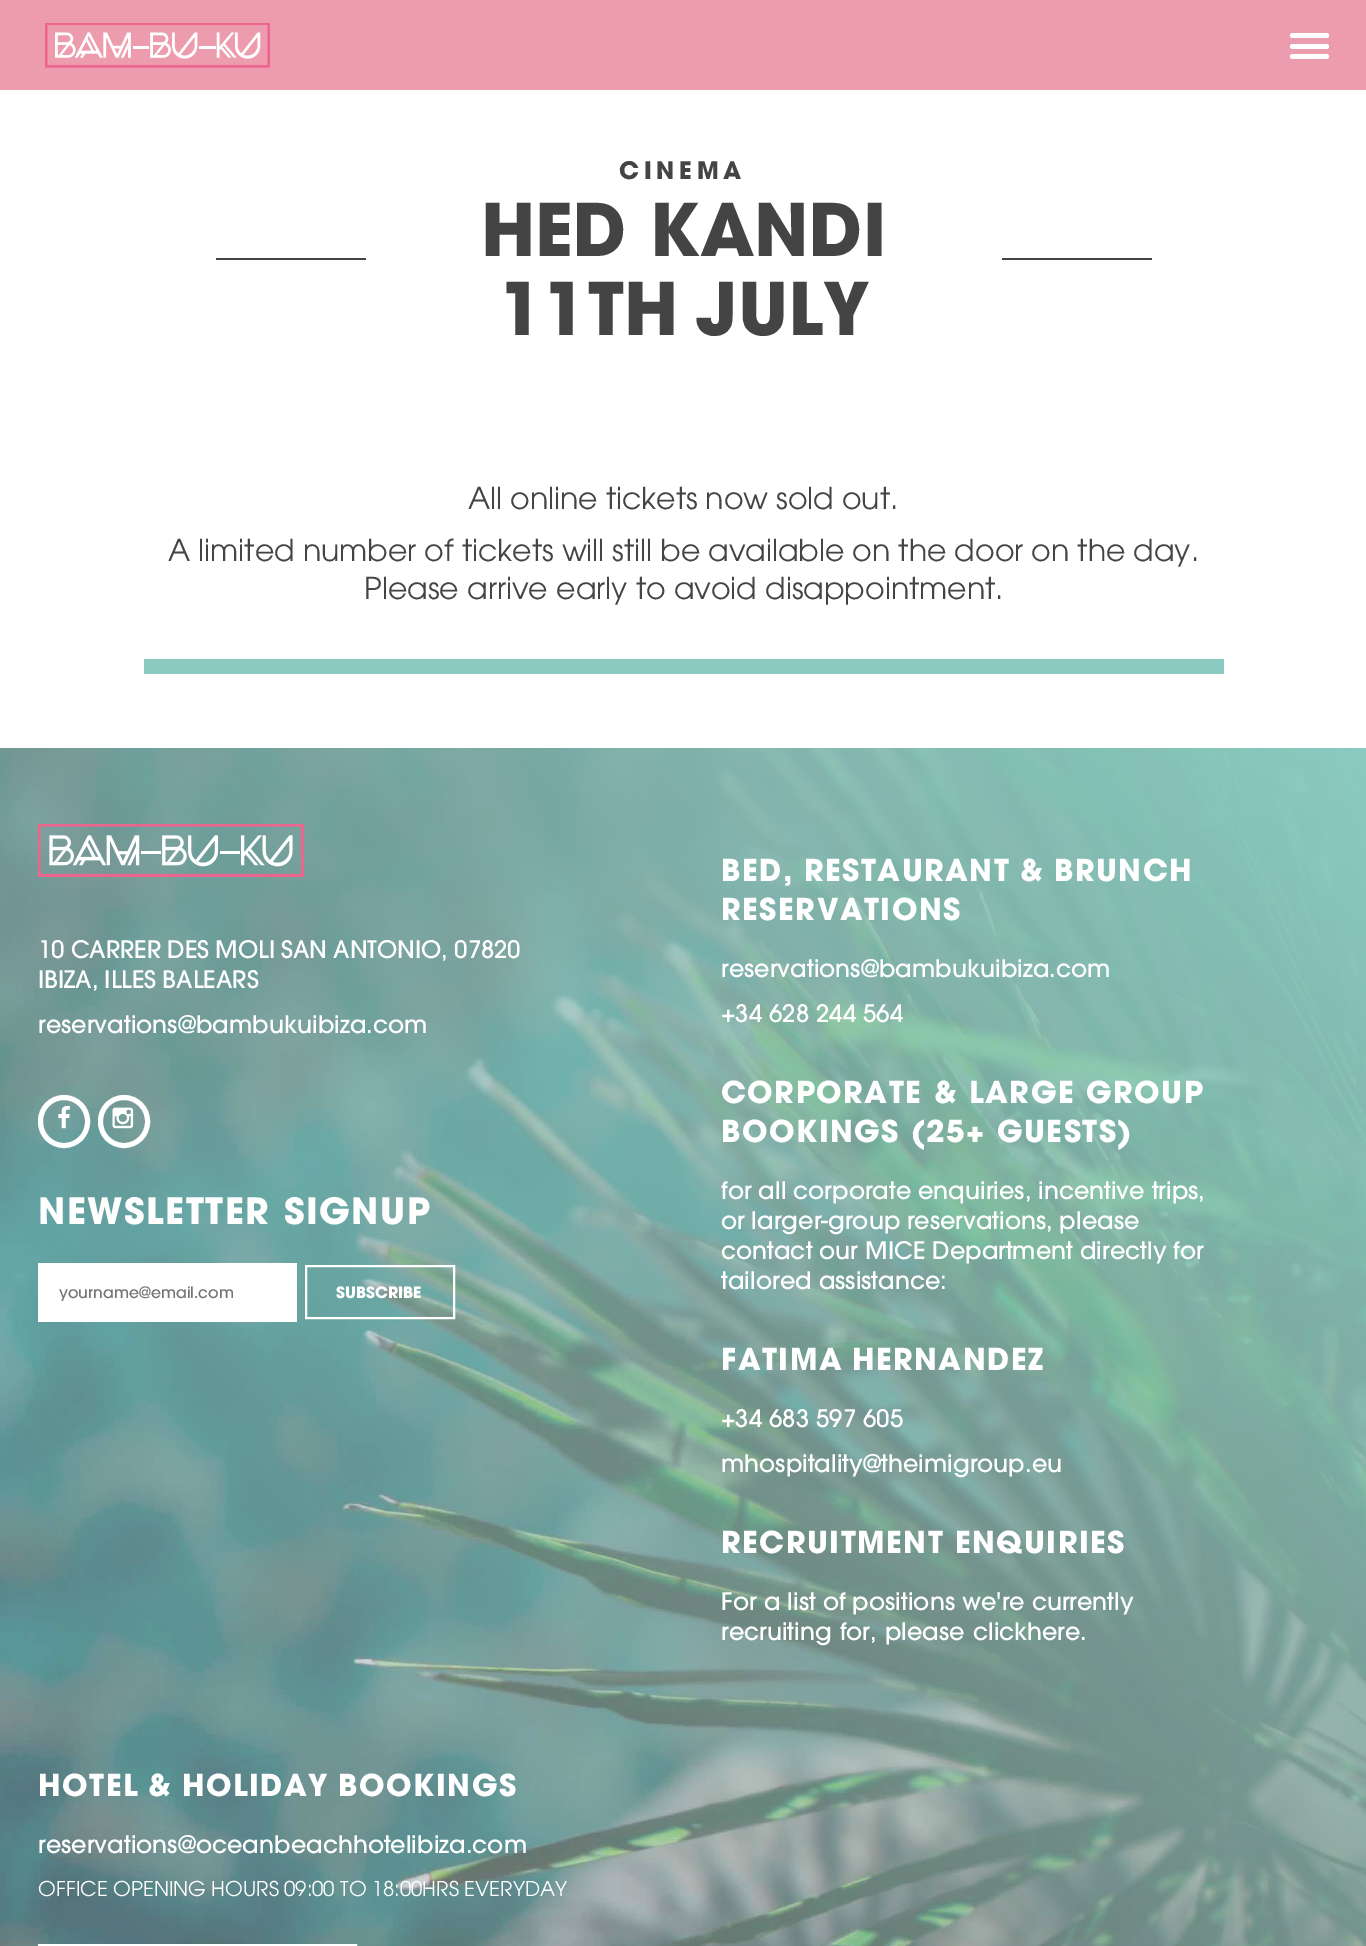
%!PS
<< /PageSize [1366 1946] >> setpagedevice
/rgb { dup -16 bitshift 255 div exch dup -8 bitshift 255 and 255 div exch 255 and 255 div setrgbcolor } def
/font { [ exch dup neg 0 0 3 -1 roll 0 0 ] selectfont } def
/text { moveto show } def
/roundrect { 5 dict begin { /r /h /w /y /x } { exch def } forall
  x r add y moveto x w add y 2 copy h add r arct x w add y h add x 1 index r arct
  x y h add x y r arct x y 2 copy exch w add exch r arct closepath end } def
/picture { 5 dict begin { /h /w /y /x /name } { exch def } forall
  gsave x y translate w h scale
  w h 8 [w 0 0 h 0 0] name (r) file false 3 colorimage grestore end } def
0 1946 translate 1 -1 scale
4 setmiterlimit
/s1 { /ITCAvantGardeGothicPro-Bold 72 font 16#444444 rgb } def
/s2 { /ITCAvantGardeGothicPro-Light 30 font 16#444444 rgb } def
/s3 { /ITCAvantGardeGothicPro-Medium 24 font 16#FFFFFF rgb } def
/s4 { /ITCAvantGardeGothicPro-Medium 15.6 font 16#757575 rgb } def
/s5 { /ITCAvantGardeGothicPro-Bold 15.6 font 16#FFFFFF rgb } def
16#FFFFFF rgb
0 0 1366 1946 rectfill
16#ED9CAE rgb
0 0 1366 90 rectfill
(pic1.raw) 45 23 225 45 picture
16#FFFFFF rgb
1290 44 39 5 2.5 roundrect fill
1290 33 39 5 2.5 roundrect fill
1290 54 39 5 2.5 roundrect fill
16#444444 rgb
216 258 150 2 rectfill
/ITCAvantGardeGothicPro-Bold 24 font
619 179 moveto 4.75 0 (CINEMA) ashow
s1
(HED KANDI) 481 256 text
499 335 moveto -4 0 32 (11TH JULY) widthshow
1002 258 150 2 rectfill
16#8ACAC0 rgb
144 659 1080 15 rectfill
/ITCAvantGardeGothicPro-Light 30 font
16#444444 rgb
468 509 moveto -0.5 0 32 (All online tickets now sold out.) widthshow
168 561 moveto -0.25 0 32 (A limited number of tickets will still be available on the door on the day.) widthshow
(Please arrive early to avoid disappointment.) 364 599 text
(pic2.raw) 0 748 1366 1198 picture
(pic3.raw) 38 824 267 53 picture
/ITCAvantGardeGothicPro-Medium 24 font
16#FFFFFF rgb
38 958 moveto -1 0 32 (10 CARRER DES MOLI SAN ANTONIO, 07820) widthshow
38 988 moveto -1 0 32 (IBIZA, ILLES BALEARS) widthshow
(reservations@bambukuibiza.com) 38 1033 text
5 setlinewidth
40.5 1097.5 47 48 23.5 roundrect stroke
(pic4.raw) 58 1105 12 24 picture
100.5 1097.5 47 48 23.5 roundrect stroke
(pic5.raw) 112 1107 22 22 picture
/ITCAvantGardeGothicPro-Bold 36 font
38 1224 moveto 1 0 32 1.5 0 (NEWSLETTER SIGNUP) awidthshow
38 1263 259 59 rectfill
s4
(yourname@email.com) 59 1298 text
16#FFFFFF rgb
2 setlinewidth
306 1266 148 52 rectstroke
s5
(SUBSCRIBE) 336 1298 text
/ITCAvantGardeGothicPro-Bold 30 font
721 881 moveto -1 0 32 1.5 0 (BED, RESTAURANT & BRUNCH) awidthshow
721 920 moveto 1.5 0 (RESERVATIONS) ashow
s3
(reservations@bambukuibiza.com) 721 977 text
(+34 628 244 564) 721 1022 text
/ITCAvantGardeGothicPro-Bold 30 font
721 1103 moveto 0.5 0 32 1.5 0 (CORPORATE & LARGE GROUP) awidthshow
721 1142 moveto 1.5 0 (BOOKINGS \(25+ GUESTS\)) ashow
/ITCAvantGardeGothicPro-Medium 24 font
721 1199 moveto -0.25 0 32 (for all corporate enquiries, incentive trips,) widthshow
721 1229 moveto -0.5 0 32 (or larger-group reservations, please) widthshow
(contact our MICE Department directly for) 721 1259 text
(tailored assistance:) 721 1289 text
/ITCAvantGardeGothicPro-Bold 30 font
721 1370 moveto -2 0 32 1.5 0 (FATIMA HERNANDEZ) awidthshow
s3
(+34 683 597 605) 721 1427 text
(mhospitality@theimigroup.eu) 721 1472 text
/ITCAvantGardeGothicPro-Bold 30 font
721 1553 moveto 1.5 0 (RECRUITMENT ENQUIRIES) ashow
s3
(For a list of positions we're currently) 721 1610 text
721 1640 moveto 1 0 32 (recruiting for, please click) widthshow
(here) 1027 1640 text
(.) 1080 1640 text
/ITCAvantGardeGothicPro-Bold 30 font
38 1796 moveto -1.5 0 32 1.5 0 (HOTEL & HOLIDAY BOOKINGS) awidthshow
s3
(reservations@oceanbeachhotelibiza.com) 38 1853 text
/ITCAvantGardeGothicPro-Light 20.4 font
38 1896 moveto -0.5 0 32 (OFFICE OPENING HOURS 09:00 TO 18:00HRS EVERYDAY) widthshow
39 1945 317 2 rectstroke
showpage
